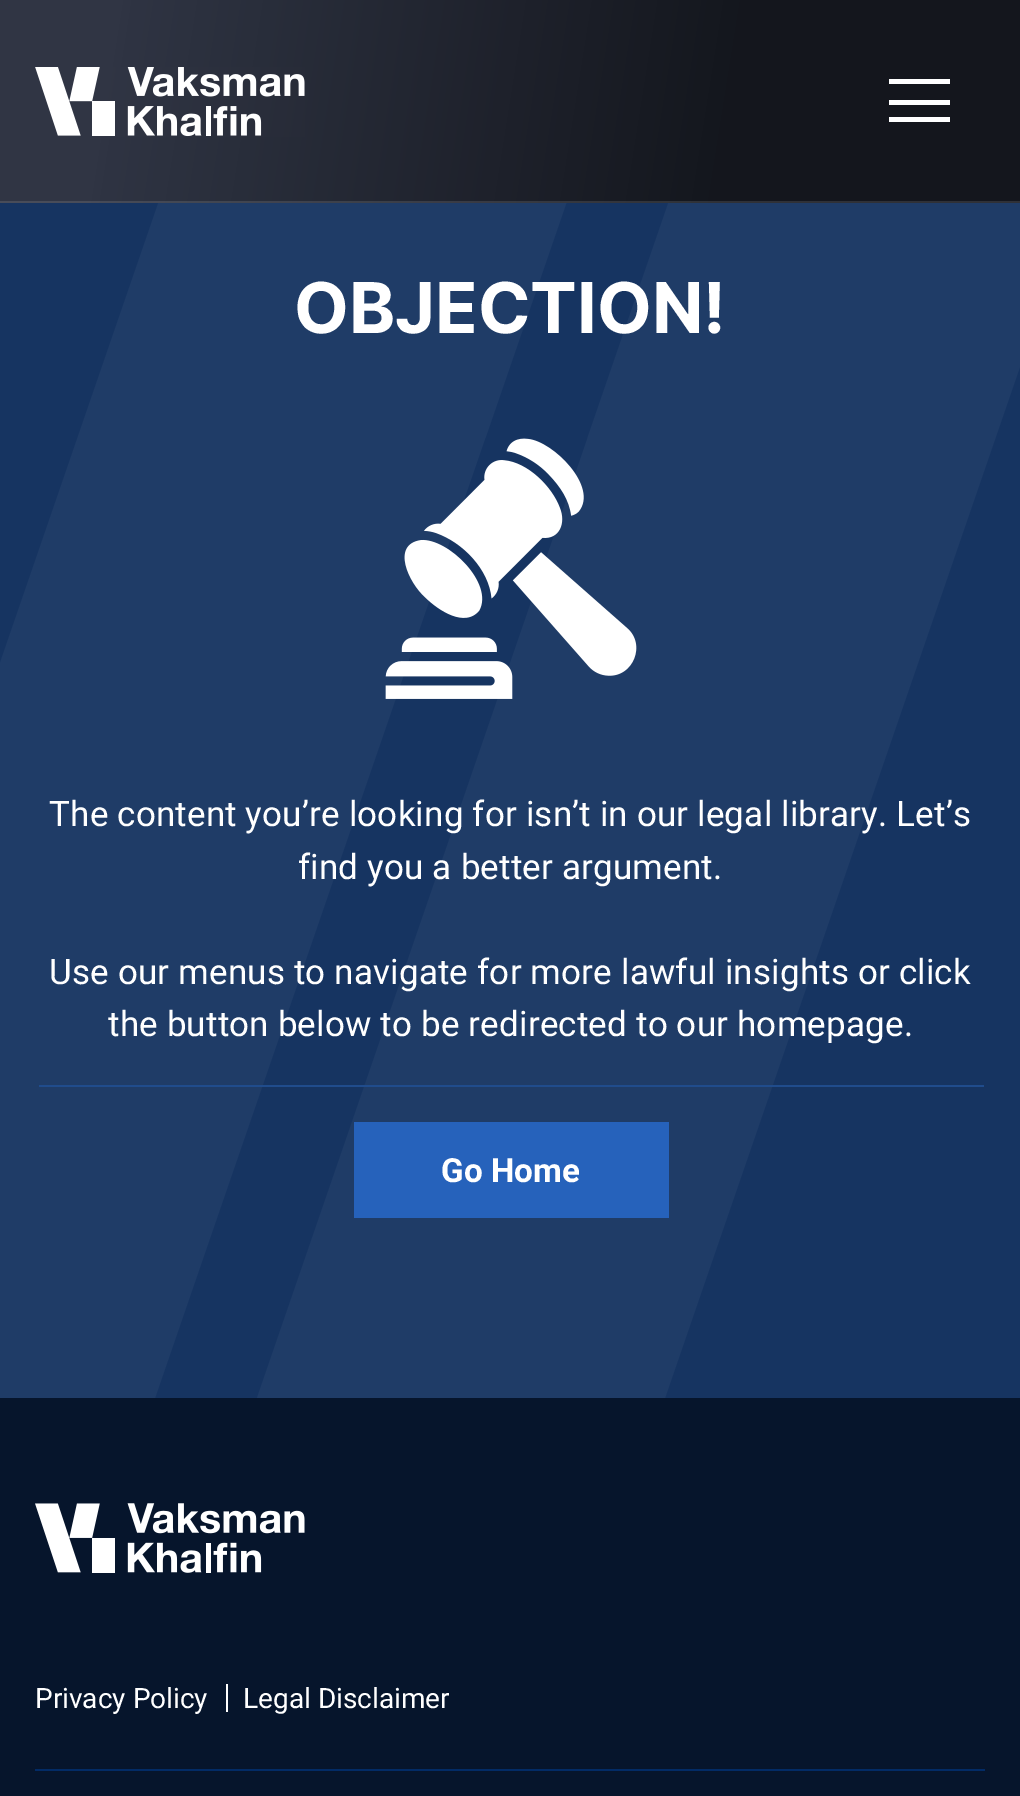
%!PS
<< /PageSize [1020 1796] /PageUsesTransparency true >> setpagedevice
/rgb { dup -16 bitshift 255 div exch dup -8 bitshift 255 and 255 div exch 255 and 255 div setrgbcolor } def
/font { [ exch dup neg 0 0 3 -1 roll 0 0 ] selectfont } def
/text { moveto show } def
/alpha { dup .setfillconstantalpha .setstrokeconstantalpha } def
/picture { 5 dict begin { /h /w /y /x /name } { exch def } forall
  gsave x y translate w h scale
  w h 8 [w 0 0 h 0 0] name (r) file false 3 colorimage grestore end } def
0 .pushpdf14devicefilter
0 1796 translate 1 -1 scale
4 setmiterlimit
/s1 { /Inter-Bold 70 font 16#FFFFFF rgb } def
/s2 { /Roboto-Bold 33.25 font 16#FFFFFF rgb } def
/s3 { /Roboto-Regular 28 font 16#FFFFFF rgb } def
16#163461 rgb
0 0 1020 1796 rectfill
16#1F3C67 rgb
253 -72 moveto 661 -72 lineto 155 1398 lineto -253 1398 lineto closepath fill
763 -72 moveto 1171 -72 lineto 665 1398 lineto 257 1398 lineto closepath fill
gsave 0 0 moveto 1020 0 lineto 1020 203 lineto 0 203 lineto closepath clip newpath
<< /ShadingType 2 /ColorSpace /DeviceRGB /Coords [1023 183 -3.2 20] /Extend [true true] /Function << /FunctionType 3 /Domain [0 1] /Functions [<< /FunctionType 2 /Domain [0 1] /C0 [0.078 0.086 0.114] /C1 [0.078 0.086 0.114] /N 1 >> << /FunctionType 2 /Domain [0 1] /C0 [0.078 0.086 0.114] /C1 [0.188 0.208 0.267] /N 1 >> << /FunctionType 2 /Domain [0 1] /C0 [0.188 0.208 0.267] /C1 [0.188 0.208 0.267] /N 1 >>] /Bounds [0.28 0.89] /Encode [0 1 0 1 0 1] >> >> shfill grestore
0.13 alpha
16#E6E6E6 rgb
0 201 1020 2 rectfill
1 alpha
(pic1.raw) 35 67 270 70 picture
16#FFFFFF rgb
889 79 61 5 rectfill
889 100 61 5 rectfill
889 117 61 5 rectfill
s1
(OBJECTION!) 294 333 text
(pic2.raw) 385 438 252 261 picture
16#204C8C rgb
39 1085 945 2 rectfill
/Roboto-Regular 35 font
16#FFFFFF rgb
49 826 moveto 0.18 0 (The content you’re looking for isn’t in our legal library. Let’s) ashow
298 879 moveto 0.18 0 (find you a better argument.) ashow
49 984 moveto 0.18 0 (Use our menus to navigate for more lawful insights or click) ashow
108 1036 moveto 0.18 0 (the button below to be redirected to our homepage.) ashow
16#2662BB rgb
354 1122 315 96 rectfill
s2
(Go Home) 441 1182 text
16#06152C rgb
0 1398 1020 398 rectfill
(pic3.raw) 35 1503 270 70 picture
16#022B66 rgb
35 1769 950 2 rectfill
s3
(Privacy Policy) 35 1708 text
226 1684 2 28 rectfill
(Legal Disclaimer) 243 1708 text
.poppdf14devicefilter showpage
